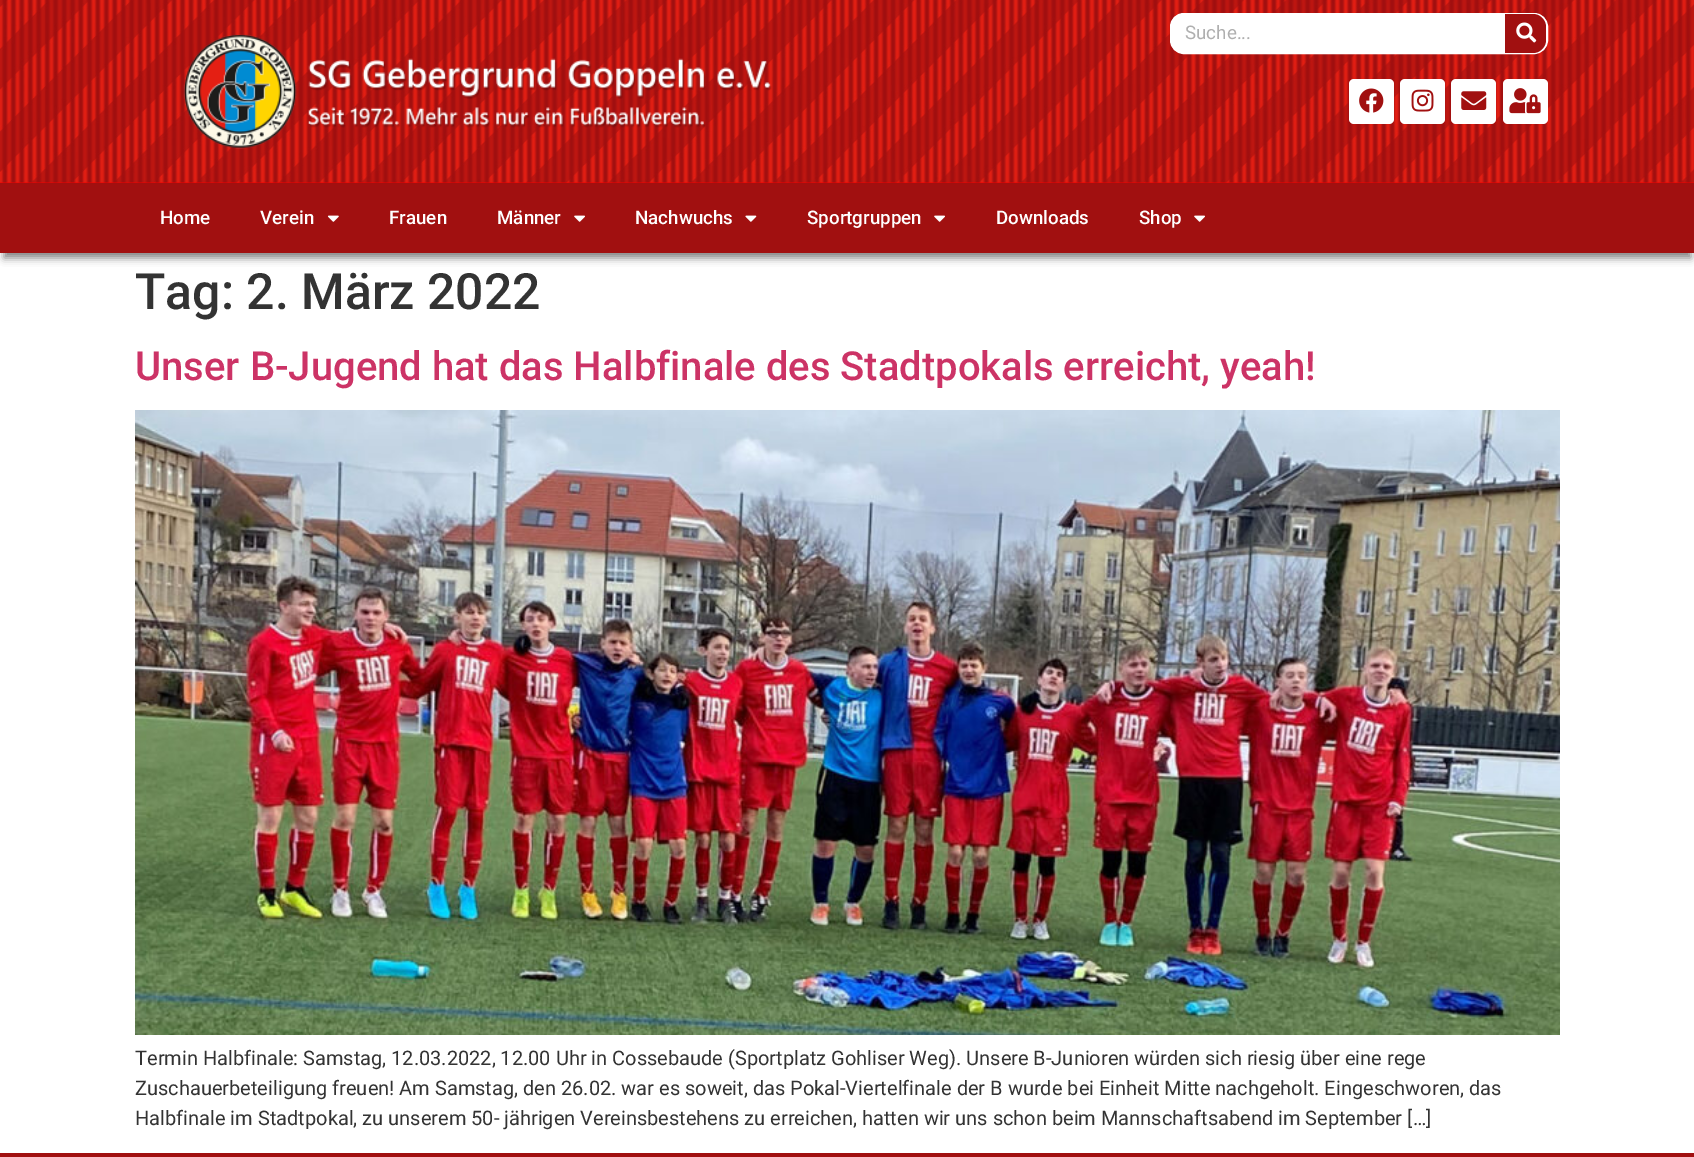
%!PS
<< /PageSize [1694 1157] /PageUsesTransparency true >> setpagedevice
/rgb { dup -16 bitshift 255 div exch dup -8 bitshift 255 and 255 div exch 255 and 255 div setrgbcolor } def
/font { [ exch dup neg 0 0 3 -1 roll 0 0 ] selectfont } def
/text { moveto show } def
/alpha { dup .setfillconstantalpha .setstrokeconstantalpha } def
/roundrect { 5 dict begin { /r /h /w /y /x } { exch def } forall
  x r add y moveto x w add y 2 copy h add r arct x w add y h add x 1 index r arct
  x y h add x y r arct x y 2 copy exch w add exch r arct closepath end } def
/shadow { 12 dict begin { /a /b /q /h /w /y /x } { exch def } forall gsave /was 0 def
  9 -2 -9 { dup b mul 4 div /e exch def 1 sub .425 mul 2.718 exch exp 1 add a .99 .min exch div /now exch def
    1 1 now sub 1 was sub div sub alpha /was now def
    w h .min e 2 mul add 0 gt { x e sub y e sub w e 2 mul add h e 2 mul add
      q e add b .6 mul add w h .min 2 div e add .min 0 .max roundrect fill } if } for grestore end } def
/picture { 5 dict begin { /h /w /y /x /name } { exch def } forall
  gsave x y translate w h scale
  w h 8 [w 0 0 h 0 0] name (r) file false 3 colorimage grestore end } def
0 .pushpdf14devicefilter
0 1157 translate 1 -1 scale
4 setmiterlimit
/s1 { /Roboto-Regular 18.75 font 16#AFAFAF rgb } def
/s2 { /Roboto-Medium 18.75 font 16#FFFFFF rgb } def
/s3 { /Roboto-Medium 50 font 16#333333 rgb } def
/s4 { /Roboto-Medium 40 font 16#CC3366 rgb } def
/s5 { /Roboto-Regular 20 font 16#333333 rgb } def
16#FFFFFF rgb
0 0 1694 1157 rectfill
16#F20000 rgb
0 182 1694 1 rectfill
(pic1.raw) 0 0 1694 183 picture
16#FFFFFF rgb
1170.5 13.5 377 40 13.5 roundrect gsave fill grestore
stroke
s1
(Suche...) 1185 39 text
16#A11010 rgb
1505 14 moveto 1533 14 lineto 1540 14 1546 20 1546 27 curveto 1546 40 lineto 1546 47 1540 53 1533 53 curveto 1505 53 lineto closepath fill
(pic2.raw) 1516 22 21 21 picture
16#FFFFFF rgb
1349 79 45 45 5 roundrect fill
(pic3.raw) 1359 88 25 25 picture
1400 79 45 45 5 roundrect fill
(pic4.raw) 1411 89 23 23 picture
1451 79 45 45 5 roundrect fill
(pic5.raw) 1461 91 26 19 picture
1503 79 45 45 5 roundrect fill
(pic6.raw) 1509 88 32 26 picture
(pic7.raw) 183 34 589 115 picture
16#818181 rgb
4 195 1687 63 0 4 1 shadow
16#A11010 rgb
0 183 1694 70 rectfill
s2
(Home) 160 224 text
(Verein) 260 224 text
(pic8.raw) 327 215 12 7 picture
(Frauen) 389 224 text
(Männer) 497 224 text
(pic9.raw) 574 215 11 7 picture
(Nachwuchs) 635 224 text
(pic10.raw) 745 215 12 7 picture
(Sportgruppen) 807 224 text
(pic9.raw) 934 215 11 7 picture
(Downloads) 996 224 text
(Shop) 1139 224 text
(pic9.raw) 1194 215 11 7 picture
s3
(Tag: 2. März 2022) 135 309 text
s4
(Unser B-Jugend hat das Halbfinale des Stadtpokals erreicht, yeah!) 135 380 text
(pic11.raw) 135 410 1425 625 picture
s5
(Termin Halbfinale: Samstag, 12.03.2022, 12.00 Uhr in Cossebaude \(Sportplatz Gohliser Weg\). Unsere B-Junioren würden sich riesig über eine rege) 135 1065 text
(Zuschauerbeteiligung freuen! Am Samstag, den 26.02. war es soweit, das Pokal-Viertelfinale der B wurde bei Einheit Mitte nachgeholt. Eingeschworen, das) 135 1095 text
(Halbfinale im Stadtpokal, zu unserem 50- jährigen Vereinsbestehens zu erreichen, hatten wir uns schon beim Mannschaftsabend im September […]) 135 1125 text
16#A11010 rgb
0 1153 1694 4 rectfill
.poppdf14devicefilter showpage
